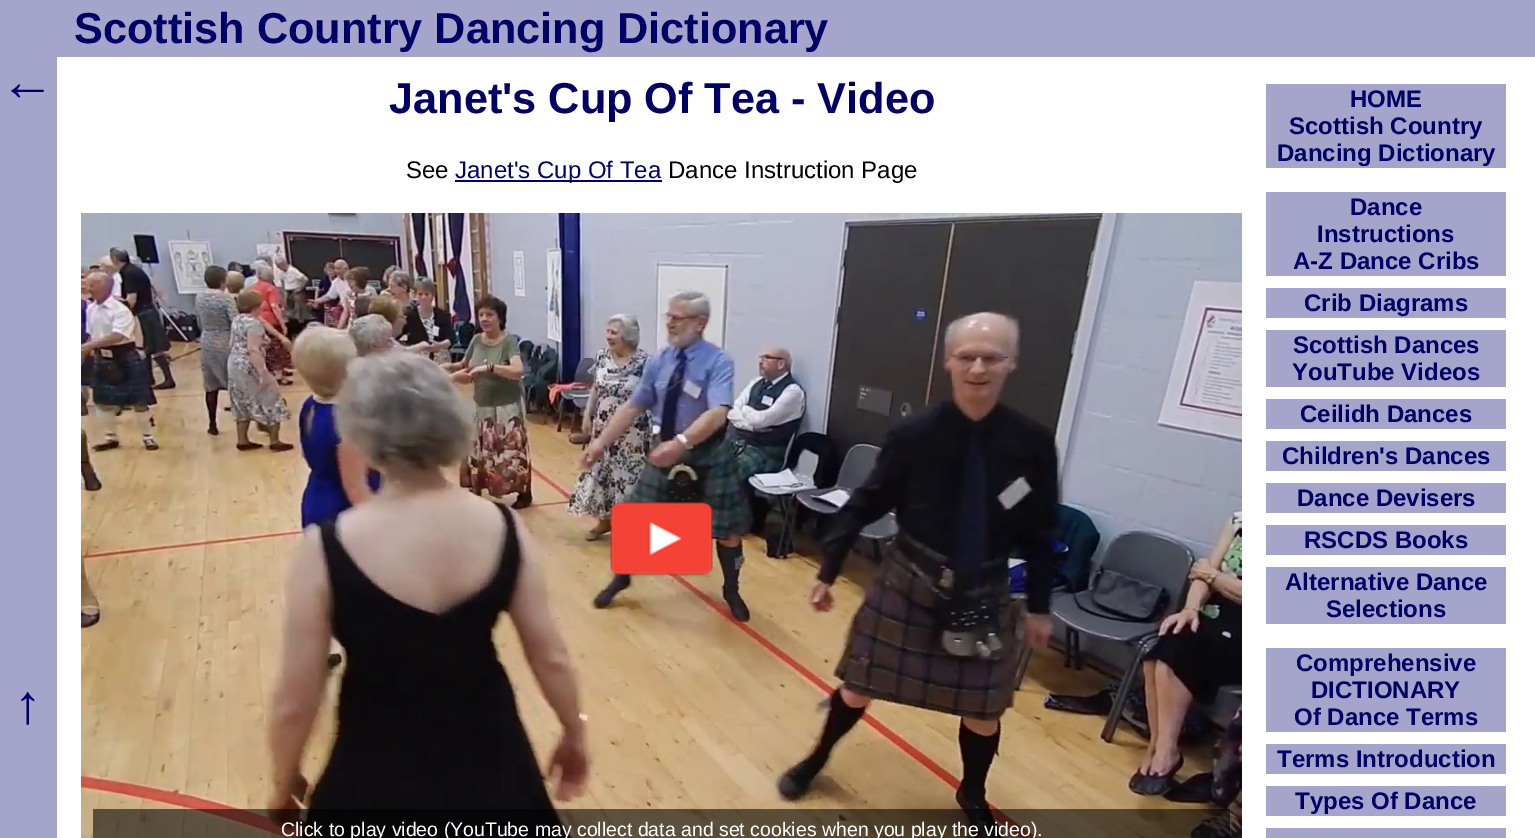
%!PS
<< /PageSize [1535 838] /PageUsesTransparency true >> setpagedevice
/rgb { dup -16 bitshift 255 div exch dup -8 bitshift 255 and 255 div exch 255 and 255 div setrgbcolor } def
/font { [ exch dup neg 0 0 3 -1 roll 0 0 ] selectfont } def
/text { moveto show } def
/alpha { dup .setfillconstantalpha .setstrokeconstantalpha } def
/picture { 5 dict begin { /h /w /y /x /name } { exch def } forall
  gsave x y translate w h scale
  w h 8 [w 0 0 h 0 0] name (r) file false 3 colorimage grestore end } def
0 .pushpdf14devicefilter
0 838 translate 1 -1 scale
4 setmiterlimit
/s1 { /LiberationSans-Bold 43.25 font 16#000066 rgb } def
/s2 { /LiberationSans-Regular 55 font 16#000066 rgb } def
/s3 { /LiberationSans-Regular 24 font 16#000000 rgb } def
/s4 { /LiberationSans-Regular 24 font 16#000066 rgb } def
/s5 { /LiberationSans-Regular 19.5 font 16#FFFFFF rgb } def
/s6 { /LiberationSans-Bold 24 font 16#000066 rgb } def
16#FFFFFF rgb
0 0 1535 838 rectfill
16#A5A5CB rgb
0 0 57 838 rectfill
57 0 1478 57 rectfill
s1
(Scottish Country Dancing Dictionary) 74 43 text
s2
(←) 0 100 text
s1
(Janet's Cup Of Tea - Video) 389 113 text
s3
(See) 406 178 text
16#000066 rgb
455 180 207 2 rectfill
(Janet's Cup Of Tea) 455 178 text
s3
(Dance Instruction Page) 668 178 text
(pic1.raw) 81 213 1161 625 picture
(pic2.raw) 610 501 103 76 picture
0.55 alpha
93 809 1137 29 rectfill
1 alpha
s5
(Click to play video \(YouTube may collect data and set cookies when you play the video\).) 281 836 text
16#A5A5CB rgb
1266 84 240 84 rectfill
s6
(HOME) 1350 107 text
(Scottish Country) 1289 134 text
(Dancing Dictionary) 1277 161 text
16#A5A5CB rgb
1266 192 240 84 rectfill
s6
(Dance) 1350 215 text
(Instructions) 1317 242 text
(A-Z Dance Cribs) 1293 269 text
16#A5A5CB rgb
1266 288 240 30 rectfill
s6
(Crib Diagrams) 1304 311 text
16#A5A5CB rgb
1266 330 240 57 rectfill
s6
(Scottish Dances) 1293 353 text
(YouTube Videos) 1292 380 text
16#A5A5CB rgb
1266 399 240 30 rectfill
s6
(Ceilidh Dances) 1300 422 text
16#A5A5CB rgb
1266 441 240 30 rectfill
s6
(Children's Dances) 1282 464 text
16#A5A5CB rgb
1266 483 240 30 rectfill
s6
(Dance Devisers) 1297 506 text
16#A5A5CB rgb
1266 525 240 30 rectfill
s6
(RSCDS Books) 1304 548 text
16#A5A5CB rgb
1266 567 240 57 rectfill
s6
(Alternative Dance) 1285 590 text
(Selections) 1326 617 text
16#A5A5CB rgb
1266 648 240 84 rectfill
s6
(Comprehensive) 1296 671 text
(DICTIONARY) 1311 698 text
(Of Dance Terms) 1294 725 text
16#A5A5CB rgb
1266 744 240 30 rectfill
s6
(Terms Introduction) 1277 767 text
16#A5A5CB rgb
1266 786 240 30 rectfill
s6
(Types Of Dance) 1295 809 text
16#A5A5CB rgb
1266 828 240 10 rectfill
s2
(↑) 14 723 text
.poppdf14devicefilter showpage
